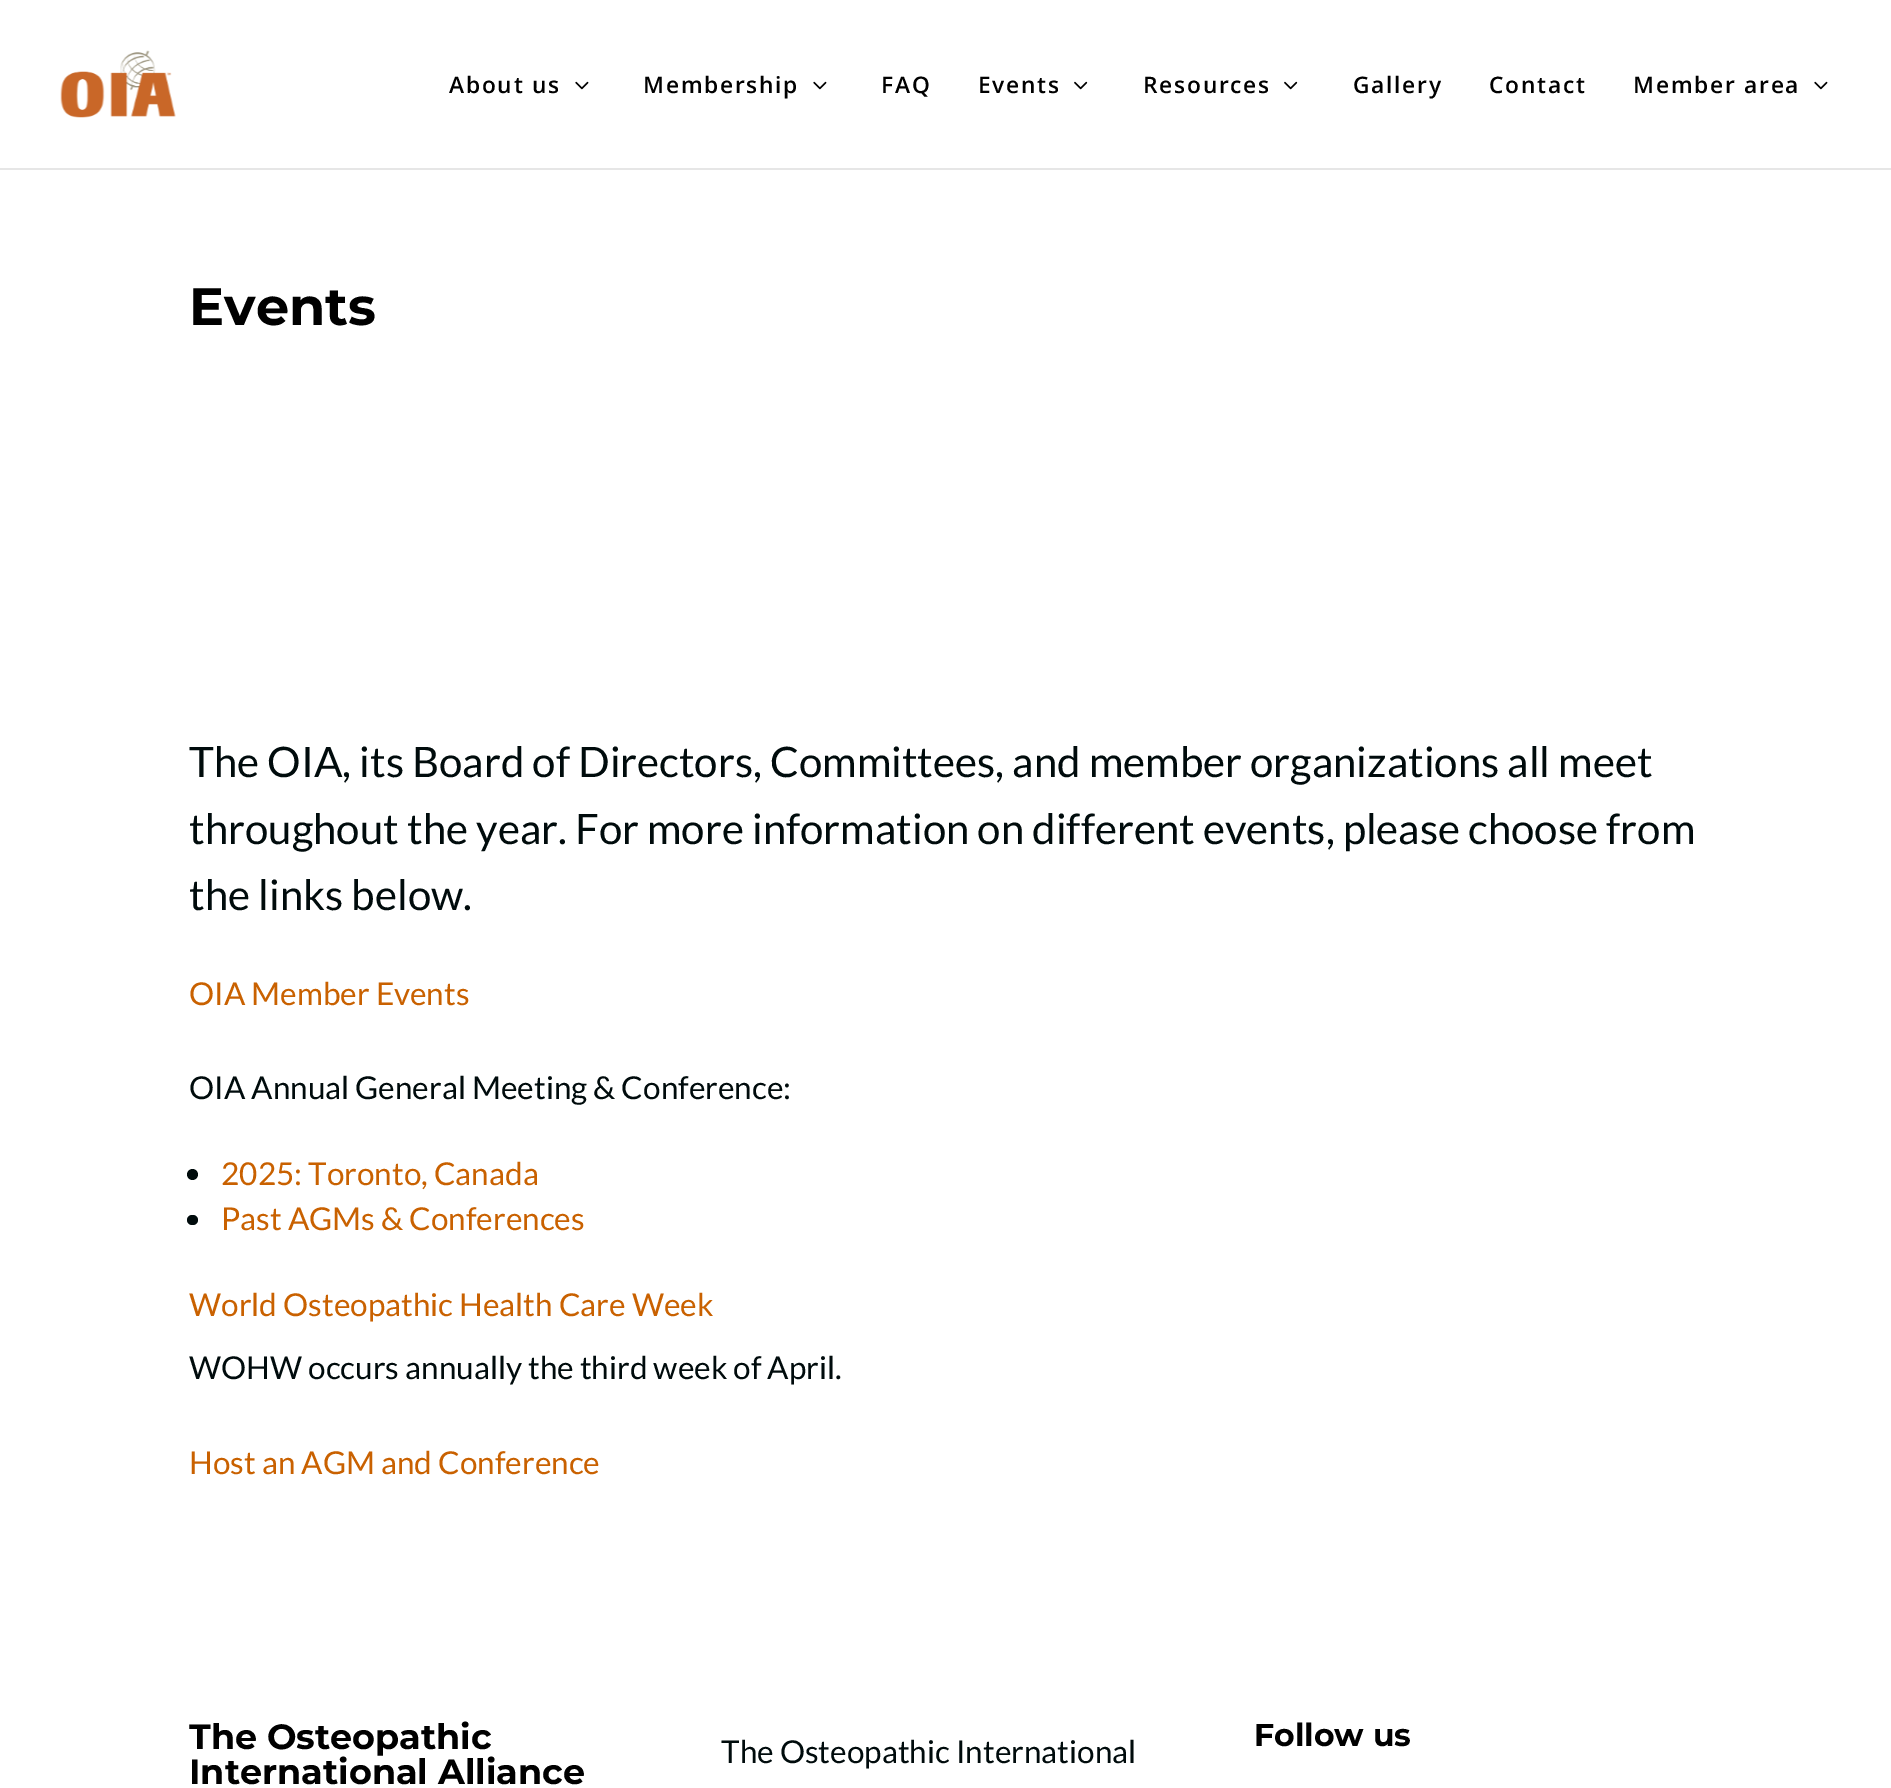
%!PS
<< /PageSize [1891 1788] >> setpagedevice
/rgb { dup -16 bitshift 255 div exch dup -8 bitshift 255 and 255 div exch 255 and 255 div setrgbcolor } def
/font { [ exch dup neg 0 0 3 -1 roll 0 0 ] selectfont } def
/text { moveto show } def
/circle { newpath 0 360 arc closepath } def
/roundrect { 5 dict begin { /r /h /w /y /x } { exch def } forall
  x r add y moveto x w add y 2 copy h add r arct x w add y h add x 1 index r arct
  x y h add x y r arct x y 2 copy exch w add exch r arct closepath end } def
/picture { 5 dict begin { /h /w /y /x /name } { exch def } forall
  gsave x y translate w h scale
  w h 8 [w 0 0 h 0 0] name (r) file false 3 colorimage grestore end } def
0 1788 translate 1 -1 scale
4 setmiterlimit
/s1 { /Montserrat-Thin 52.5 font 16#000000 rgb } def
/s2 { /Lato-Regular 42 font 16#000B0C rgb } def
/s3 { /Lato-Regular 31.5 font 16#C96100 rgb } def
/s4 { /Lato-Regular 31.5 font 16#000B0C rgb } def
/s5 { /Montserrat-Thin 35 font 16#000000 rgb } def
/s6 { /Montserrat-Thin 31.5 font 16#000000 rgb } def
16#FFFFFF rgb
0 0 1891 1788 rectfill
16#E6E6E6 rgb
0 168 moveto 0 170 lineto 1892 170 lineto 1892 2 lineto 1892 168 lineto closepath fill
(pic1.raw) 60 50 116 68 picture
/OpenSans-SemiBold 22.75 font
16#000000 rgb
449 93 moveto 1.75 0 (About us) ashow
(pic2.raw) 575 81 14 9 picture
643 93 moveto 1.75 0 (Membership) ashow
(pic2.raw) 813 81 14 9 picture
881 93 moveto 1.75 0 (FAQ) ashow
978 93 moveto 1.75 0 (Events) ashow
(pic3.raw) 1074 81 14 9 picture
1143 93 moveto 1.75 0 (Resources) ashow
(pic3.raw) 1284 81 14 9 picture
1353 93 moveto 1.75 0 (Gallery) ashow
1489 93 moveto 1.75 0 (Contact) ashow
1633 93 moveto 1.75 0 (Member area) ashow
(pic2.raw) 1814 81 14 9 picture
s1
(Events) 189 325 text
s2
(The OIA, its Board of Directors, Committees, and member organizations all meet) 189 777 text
(throughout the year. For more information on different events, please choose from) 189 844 text
(the links below.) 189 910 text
s3
(OIA Member Events) 189 1005 text
s4
(OIA Annual General Meeting & Conference:) 189 1099 text
192.5 1174.5 5.5 circle fill
s3
(2025: Toronto, Canada) 221 1185 text
16#000B0C rgb
187 1215 11 10 5 roundrect fill
s3
(Past AGMs & Conferences) 221 1230 text
(World Osteopathic Health Care Week) 189 1316 text
s4
(WOHW occurs annually the third week of April.) 189 1379 text
s3
(Host an AGM and Conference) 189 1474 text
s5
(The Osteopathic) 189 1749 text
(International Alliance) 189 1784 text
s6
(Follow us) 1254 1746 text
s4
(The Osteopathic International) 721 1763 text
showpage
